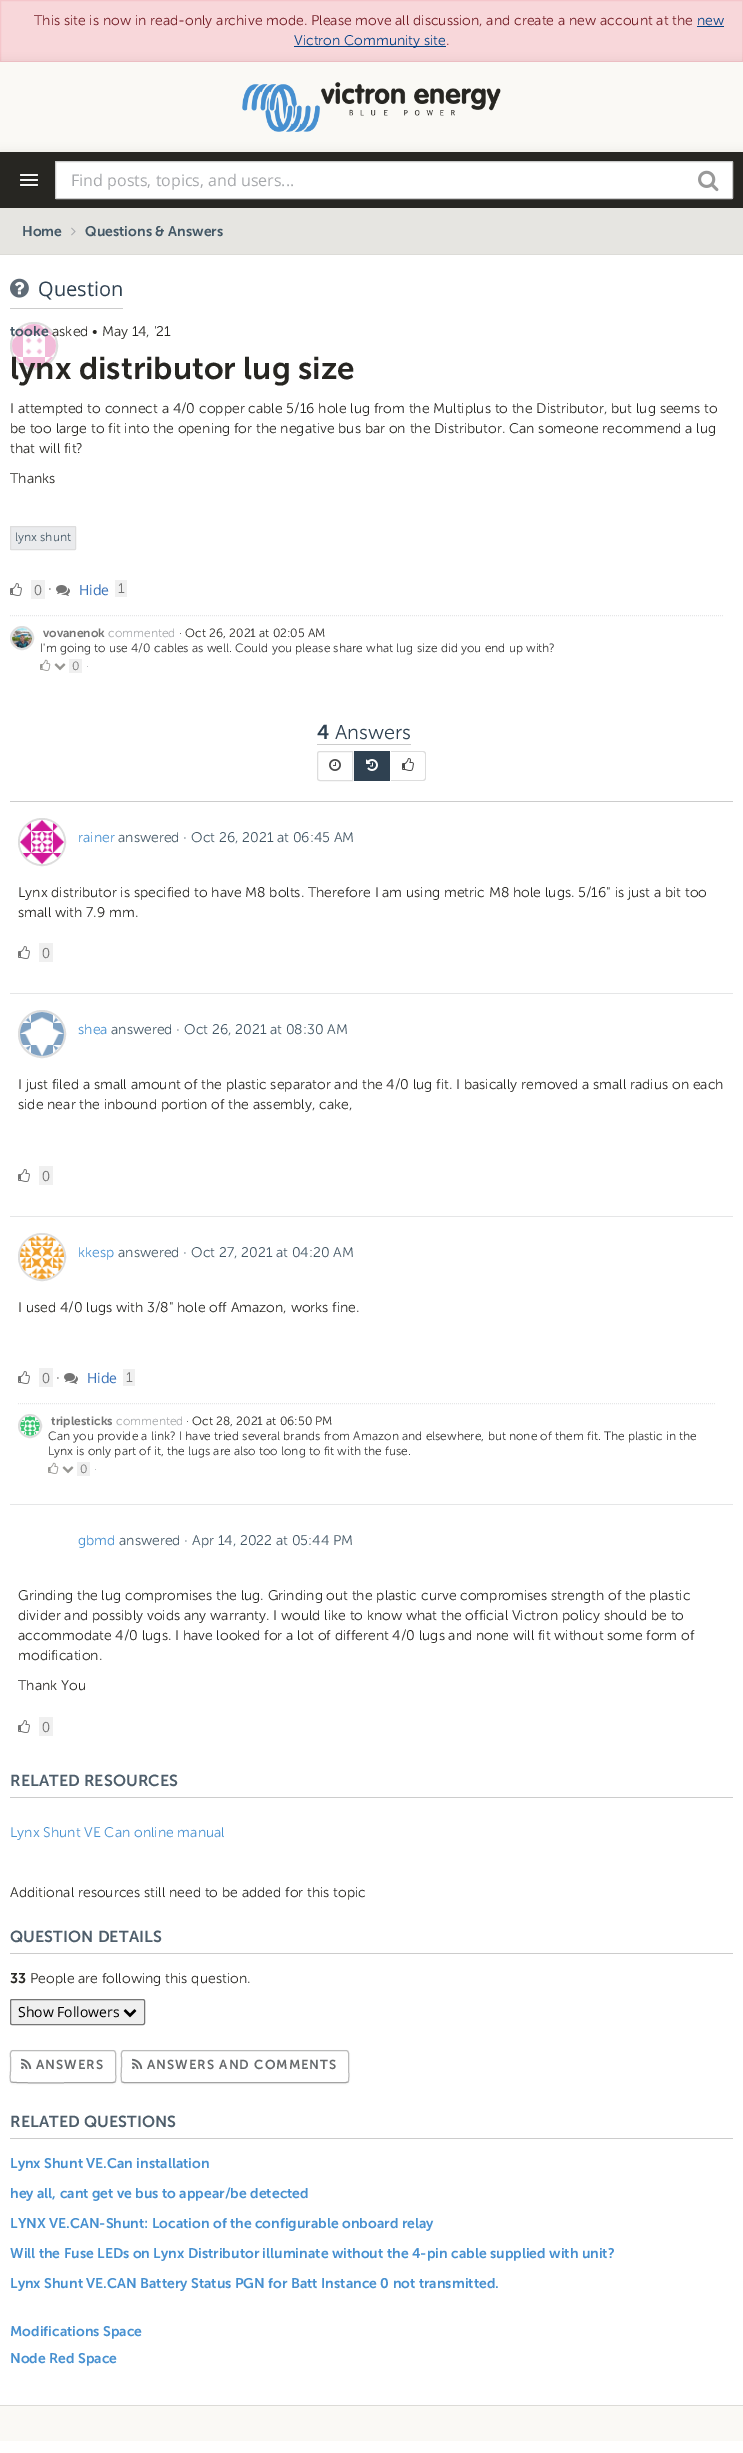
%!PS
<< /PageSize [743 2453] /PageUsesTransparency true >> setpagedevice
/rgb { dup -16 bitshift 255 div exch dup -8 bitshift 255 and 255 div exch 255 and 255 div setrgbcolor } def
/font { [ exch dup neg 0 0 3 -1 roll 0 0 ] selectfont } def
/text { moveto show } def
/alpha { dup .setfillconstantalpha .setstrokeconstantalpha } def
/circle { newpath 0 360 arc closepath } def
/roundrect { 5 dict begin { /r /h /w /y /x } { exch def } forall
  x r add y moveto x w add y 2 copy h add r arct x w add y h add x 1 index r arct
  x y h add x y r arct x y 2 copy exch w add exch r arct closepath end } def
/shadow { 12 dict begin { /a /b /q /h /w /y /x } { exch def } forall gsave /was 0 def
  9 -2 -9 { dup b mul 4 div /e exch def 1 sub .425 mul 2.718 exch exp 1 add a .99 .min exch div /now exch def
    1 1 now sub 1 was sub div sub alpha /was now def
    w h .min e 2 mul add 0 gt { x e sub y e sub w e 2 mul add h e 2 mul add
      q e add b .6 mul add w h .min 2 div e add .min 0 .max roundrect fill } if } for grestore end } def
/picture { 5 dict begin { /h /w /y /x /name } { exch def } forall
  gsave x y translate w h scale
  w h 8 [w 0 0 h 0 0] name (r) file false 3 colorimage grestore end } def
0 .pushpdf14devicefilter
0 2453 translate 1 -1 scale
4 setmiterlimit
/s1 { /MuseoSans-Regular 14 font 16#721C24 rgb } def
/s2 { /MuseoSans-Regular 14 font 16#004085 rgb } def
/s3 { /OpenSans-Regular 16 font 16#A7A9AC rgb } def
/s4 { /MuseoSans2-Regular 14 font 16#435765 rgb } def
/s5 { /OpenSans-Regular 20 font 16#2F4151 rgb } def
/s6 { /MuseoSans-Regular 14 font 16#272622 rgb } def
/s7 { /MuseoSans2-Regular 31.5 font 16#272622 rgb } def
/s8 { /MuseoSans-Regular 12 font 16#435765 rgb } def
/s9 { /OpenSans-Regular 14 font 16#747474 rgb } def
/s10 { /OpenSans-Regular 14 font 16#3B73B9 rgb } def
/s11 { /MuseoSans-Regular 14 font 16#747474 rgb } def
/s12 { /MuseoSans2-Regular 12 font 16#747474 rgb } def
/s13 { /MuseoSans-Regular 12 font 16#A7A9AC rgb } def
/s14 { /MuseoSans-Regular 12 font 16#272622 rgb } def
/s15 { /MuseoSans-Regular 12 font 16#333333 rgb } def
/s16 { /MuseoSans-Regular 12 font 16#747474 rgb } def
/s17 { /MuseoSans2-Regular 20 font 16#2F4151 rgb } def
/s18 { /MuseoSans-Regular 20 font 16#2F4151 rgb } def
/s19 { /MuseoSans-Regular 14 font 16#4790D0 rgb } def
/s20 { /MuseoSans-Regular 14 font 16#435765 rgb } def
/s21 { /MuseoSans2-Regular 14 font 16#272622 rgb } def
/s22 { /OpenSans-Regular 14 font 16#000000 rgb } def
/s23 { /MuseoSans2-Regular 14 font 16#4790D0 rgb } def
16#FFFFFF rgb
0 0 743 2453 rectfill
16#F8D7DA rgb
0.5 0.5 moveto 742.5 0.5 lineto 742.5 61.5 lineto 0.5 61.5 lineto closepath gsave fill grestore
16#F5C6CB rgb
stroke
s1
(This site is now in read-only archive mode. Please move all discussion, and create a new account at the) 34 25 text
s2
(new) 697 25 text
697 26 27 1 rectfill
294 46 152 1 rectfill
16#000000 rgb
0 63 743 90 0 5 0.1 shadow
s2
(Victron Community site) 294 45 text
s1
(.) 446 45 text
16#FAF9F5 rgb
0 62 743 90 rectfill
(pic1.raw) 242 82 259 50 picture
16#000000 rgb
0 153 743 56 0 5 0.1 shadow
16#272622 rgb
0 152 743 56 rectfill
16#1D1D1A rgb
20 175.5 moveto 19 177.5 23.5 177 23.5 177 curveto 34.5 177 lineto 34.5 177 39 177.5 38 175.5 curveto 37 176.5 30.5 176 29 176 curveto 27.5 176 21 176.5 20 175.5 curveto closepath fill
16#F5F5F5 rgb
20 174 18 2 1 roundrect fill
16#1D1D1A rgb
20 180.5 moveto 19 182.5 23.5 182 23.5 182 curveto 34.5 182 lineto 34.5 182 39 182.5 38 180.5 curveto 37 181.5 30.5 181 29 181 curveto 27.5 181 21 181.5 20 180.5 curveto closepath fill
16#F5F5F5 rgb
20 179 18 2 1 roundrect fill
16#1D1D1A rgb
20 185.5 moveto 19 187.5 23.5 187 23.5 187 curveto 34.5 187 lineto 34.5 187 39 187.5 38 185.5 curveto 37 186.5 30.5 186 29 186 curveto 27.5 186 21 186.5 20 185.5 curveto closepath fill
16#F5F5F5 rgb
20 184 18 2 1 roundrect fill
16#FFFFFF rgb
55.5 161.5 677 37 0.5 roundrect gsave fill grestore
16#CCCCCC rgb
stroke
s3
(Find posts, topics, and users...) 71 186 text
(pic2.raw) 698 170 21 22 picture
16#E6E5E1 rgb
0 208 743 46 rectfill
16#DCDBD7 rgb
0 254 743 1 rectfill
s4
(Home) 22 236 text
(pic3.raw) 71 227 5 9 picture
(Questions & Answers) 85 236 text
16#CCCCCC rgb
10 308 113 1 rectfill
(pic4.raw) 10 278 19 20 picture
s5
(Question) 38 296 text
16#DDDDDD rgb
2 setlinewidth
34 346 23 circle stroke
(pic5.raw) 12 324 44 44 picture
s4
(tooke) 10 336 text
s6
(asked • May 14, '21) 52 336 text
s7
(lynx distributor lug size) 10 379 text
s6
(I attempted to connect a 4/0 copper cable 5/16 hole lug from the Multiplus to the Distributor, but lug seems to) 10 413 text
(be too large to fit into the opening for the negative bus bar on the Distributor. Can someone recommend a lug) 10 433 text
(that will fit?) 10 453 text
(Thanks) 10 483 text
16#EAEBED rgb
10.5 526.5 65 23 0.5 roundrect gsave fill grestore
16#DDDDDD rgb
1 setlinewidth
stroke
s8
(lynx shunt) 15 541 text
(pic6.raw) 10 583 12 13 picture
16#F0F0F0 rgb
31 580 14 19 rectfill
s9
(0) 34 595 text
s6
(·) 48 593 text
(pic7.raw) 56 585 14 11 picture
s10
(Hide) 79 595 text
16#F0F0F0 rgb
115 580 12 17 rectfill
s11
(1) 118 593 text
16#E5E6E7 rgb
[1 1] 0 setdash
10 615.5 moveto 723 615.5 lineto stroke
16#DDDDDD rgb
2 setlinewidth
[] 0 setdash
22 638 11 circle stroke
(pic8.raw) 12 628 20 20 picture
s12
(vovanenok) 43 637 text
s13
(commented) 108 637 text
s14
(· Oct 26, 2021 at 02:05 AM) 179 637 text
s15
(I'm going to use 4/0 cables as well. Could you please share what lug size did you end up with?) 40 652 text
(pic9.raw) 40 659 11 12 picture
(pic10.raw) 54 663 12 8 picture
16#F0F0F0 rgb
69 659 13 14 rectfill
s16
(0) 72 670 text
s13
(·) 86 670 text
16#CCCCCC rgb
10 801 723 1 rectfill
s17
(4) 317 739 text
s18
(Answers) 335 739 text
16#CCCCCC rgb
317 744 94 1 rectfill
16#DDDDDD rgb
1 setlinewidth
320 751.5 moveto 352.5 751.5 lineto 352.5 780.5 lineto 320 780.5 lineto 318.5 780.5 317.5 779.5 317.5 778 curveto 317.5 754 lineto 317.5 752.5 318.5 751.5 320 751.5 curveto closepath stroke
(pic11.raw) 329 759 12 12 picture
16#2F4151 rgb
354 751 36 30 rectfill
(pic12.raw) 366 759 12 12 picture
16#DDDDDD rgb
391 751 moveto 423 751 lineto 424.5 751 426 752.5 426 754 curveto 426 778 lineto 426 779.5 424.5 781 423 781 curveto 391 781 lineto closepath 391 752 moveto 423 752 lineto 424 752 425 753 425 754 curveto 425 778 lineto 425 779 424 780 423 780 curveto 391 780 lineto closepath eofill
(pic13.raw) 402 758 12 13 picture
2 setlinewidth
42 842 23 circle stroke
(pic14.raw) 20 820 44 44 picture
s19
(rainer) 78 842 text
s20
(answered · Oct 26, 2021 at 06:45 AM) 118 842 text
s6
(Lynx distributor is specified to have M8 bolts. Therefore I am using metric M8 hole lugs. 5/16" is just a bit too) 18 897 text
(small with 7.9 mm.) 18 917 text
(pic6.raw) 18 946 12 13 picture
16#F0F0F0 rgb
39 943 14 19 rectfill
s9
(0) 42 958 text
16#E5E6E7 rgb
10 993 723 1 rectfill
16#DDDDDD rgb
42 1034 23 circle stroke
(pic15.raw) 20 1012 44 44 picture
s19
(shea) 78 1034 text
s20
(answered · Oct 26, 2021 at 08:30 AM) 111 1034 text
s6
(I just filed a small amount of the plastic separator and the 4/0 lug fit. I basically removed a small radius on each) 18 1089 text
(side near the inbound portion of the assembly, cake,) 18 1109 text
(pic6.raw) 18 1169 12 13 picture
16#F0F0F0 rgb
39 1166 14 19 rectfill
s9
(0) 42 1181 text
16#E5E6E7 rgb
10 1216 723 1 rectfill
16#DDDDDD rgb
42 1257 23 circle stroke
(pic16.raw) 20 1235 44 44 picture
s19
(kkesp) 78 1257 text
s20
(answered · Oct 27, 2021 at 04:20 AM) 118 1257 text
s6
(I used 4/0 lugs with 3/8" hole off Amazon, works fine.) 18 1312 text
(pic6.raw) 18 1371 12 13 picture
16#F0F0F0 rgb
39 1368 14 19 rectfill
s9
(0) 42 1383 text
s6
(·) 56 1382 text
(pic7.raw) 64 1373 14 11 picture
s10
(Hide) 87 1383 text
16#F0F0F0 rgb
123 1369 12 17 rectfill
s11
(1) 126 1382 text
16#E5E6E7 rgb
1 setlinewidth
[1 1] 0 setdash
18 1403.5 moveto 715 1403.5 lineto stroke
16#DDDDDD rgb
2 setlinewidth
[] 0 setdash
30 1426 11 circle stroke
(pic17.raw) 20 1416 20 20 picture
s12
(triplesticks) 51 1425 text
s13
(commented) 116 1425 text
s14
(· Oct 28, 2021 at 06:50 PM) 186 1425 text
s15
(Can you provide a link? I have tried several brands from Amazon and elsewhere, but none of them fit. The plastic in the) 48 1440 text
(Lynx is only part of it, the lugs are also too long to fit with the fuse.) 48 1455 text
(pic9.raw) 48 1462 11 12 picture
(pic10.raw) 62 1466 12 8 picture
16#F0F0F0 rgb
77 1462 13 14 rectfill
s16
(0) 80 1473 text
s13
(·) 94 1473 text
16#E5E6E7 rgb
10 1504 723 1 rectfill
s19
(gbmd) 78 1545 text
s20
(answered · Apr 14, 2022 at 05:44 PM) 119 1545 text
s6
(Grinding the lug compromises the lug. Grinding out the plastic curve compromises strength of the plastic) 18 1600 text
(divider and possibly voids any warranty. I would like to know what the official Victron policy should be to) 18 1620 text
(accommodate 4/0 lugs. I have looked for a lot of different 4/0 lugs and none will fit without some form of) 18 1640 text
(modification.) 18 1660 text
(Thank You) 18 1690 text
(pic6.raw) 18 1720 12 13 picture
16#F0F0F0 rgb
39 1717 14 19 rectfill
s9
(0) 42 1732 text
16#CCCCCC rgb
10 1797 723 1 rectfill
/MuseoSans2-Regular 16 font
16#4E5E6B rgb
10 1786 moveto 0.1 0 (RELATED RESOURCES) ashow
s19
(Lynx Shunt VE Can online manual) 10 1837 text
s6
(Additional resources still need to be added for this topic) 10 1897 text
16#CCCCCC rgb
10 1953 723 1 rectfill
/MuseoSans2-Regular 16 font
16#4E5E6B rgb
10 1942 moveto 0.1 0 (QUESTION DETAILS) ashow
s21
(33) 10 1983 text
s6
(People are following this question.) 30 1983 text
16#EFEFEF rgb
10.5 1999.5 134 25 1.5 roundrect gsave fill grestore
16#767676 rgb
1 setlinewidth
stroke
s22
(Show Followers) 18 2017 text
(pic18.raw) 123 2009 14 9 picture
10 2051 106 33 3 1 0.05 shadow
16#FFFFFF rgb
10 2050 106 33 3 roundrect fill
16#A2A2A2 rgb
115 2082 moveto 113 2082.5 lineto 96.5 2082.5 lineto 87.5 2082.5 13.5 2083.5 11.5 2082 curveto 11 2082 lineto stroke
16#BBBBBB rgb
11 2082 moveto 9.5 2080 10.5 2073 10.5 2071 curveto 10.5 2057.5 lineto 10.5 2055.5 9.5 2050.5 13 2050.5 curveto 113 2050.5 lineto 116.5 2050.5 115.5 2055.5 115.5 2057.5 curveto 115.5 2071 lineto 115.5 2073 116.5 2080 115 2082 curveto stroke
(pic19.raw) 21 2058 11 11 picture
/MuseoSans2-Regular 13 font
16#676A6C rgb
36 2069 moveto 1 0 (ANSWERS) ashow
16#000000 rgb
121 2051 228 33 3 1 0.05 shadow
16#FFFFFF rgb
121 2050 228 33 3 roundrect fill
16#A2A2A2 rgb
348 2082 moveto 346 2082.5 lineto 124 2082.5 lineto 122 2082 lineto stroke
16#BBBBBB rgb
122 2082 moveto 120.5 2080 121.5 2069 121.5 2066.5 curveto 121.5 2057.5 lineto 121.5 2055.5 120.5 2050.5 124 2050.5 curveto 346 2050.5 lineto 349.5 2050.5 348.5 2055.5 348.5 2057.5 curveto 348.5 2066.5 lineto 348.5 2069 349.5 2080 348 2082 curveto stroke
(pic19.raw) 132 2058 11 11 picture
16#676A6C rgb
147 2069 moveto 1 0 (ANSWERS AND COMMENTS) ashow
16#CCCCCC rgb
10 2138 723 1 rectfill
/MuseoSans2-Regular 16 font
16#4E5E6B rgb
10 2127 moveto 0.1 0 (RELATED QUESTIONS) ashow
s23
(Lynx Shunt VE.Can installation) 10 2168 text
(hey all, cant get ve bus to appear/be detected) 10 2198 text
(LYNX VE.CAN-Shunt: Location of the configurable onboard relay) 10 2228 text
(Will the Fuse LEDs on Lynx Distributor illuminate without the 4-pin cable supplied with unit?) 10 2258 text
(Lynx Shunt VE.CAN Battery Status PGN for Batt Instance 0 not transmitted.) 10 2288 text
(Modifications Space) 10 2336 text
(Node Red Space) 10 2363 text
16#FAF9F5 rgb
0 2406 743 35 rectfill
16#DCDBD7 rgb
0 2405 743 1 rectfill
.poppdf14devicefilter showpage
